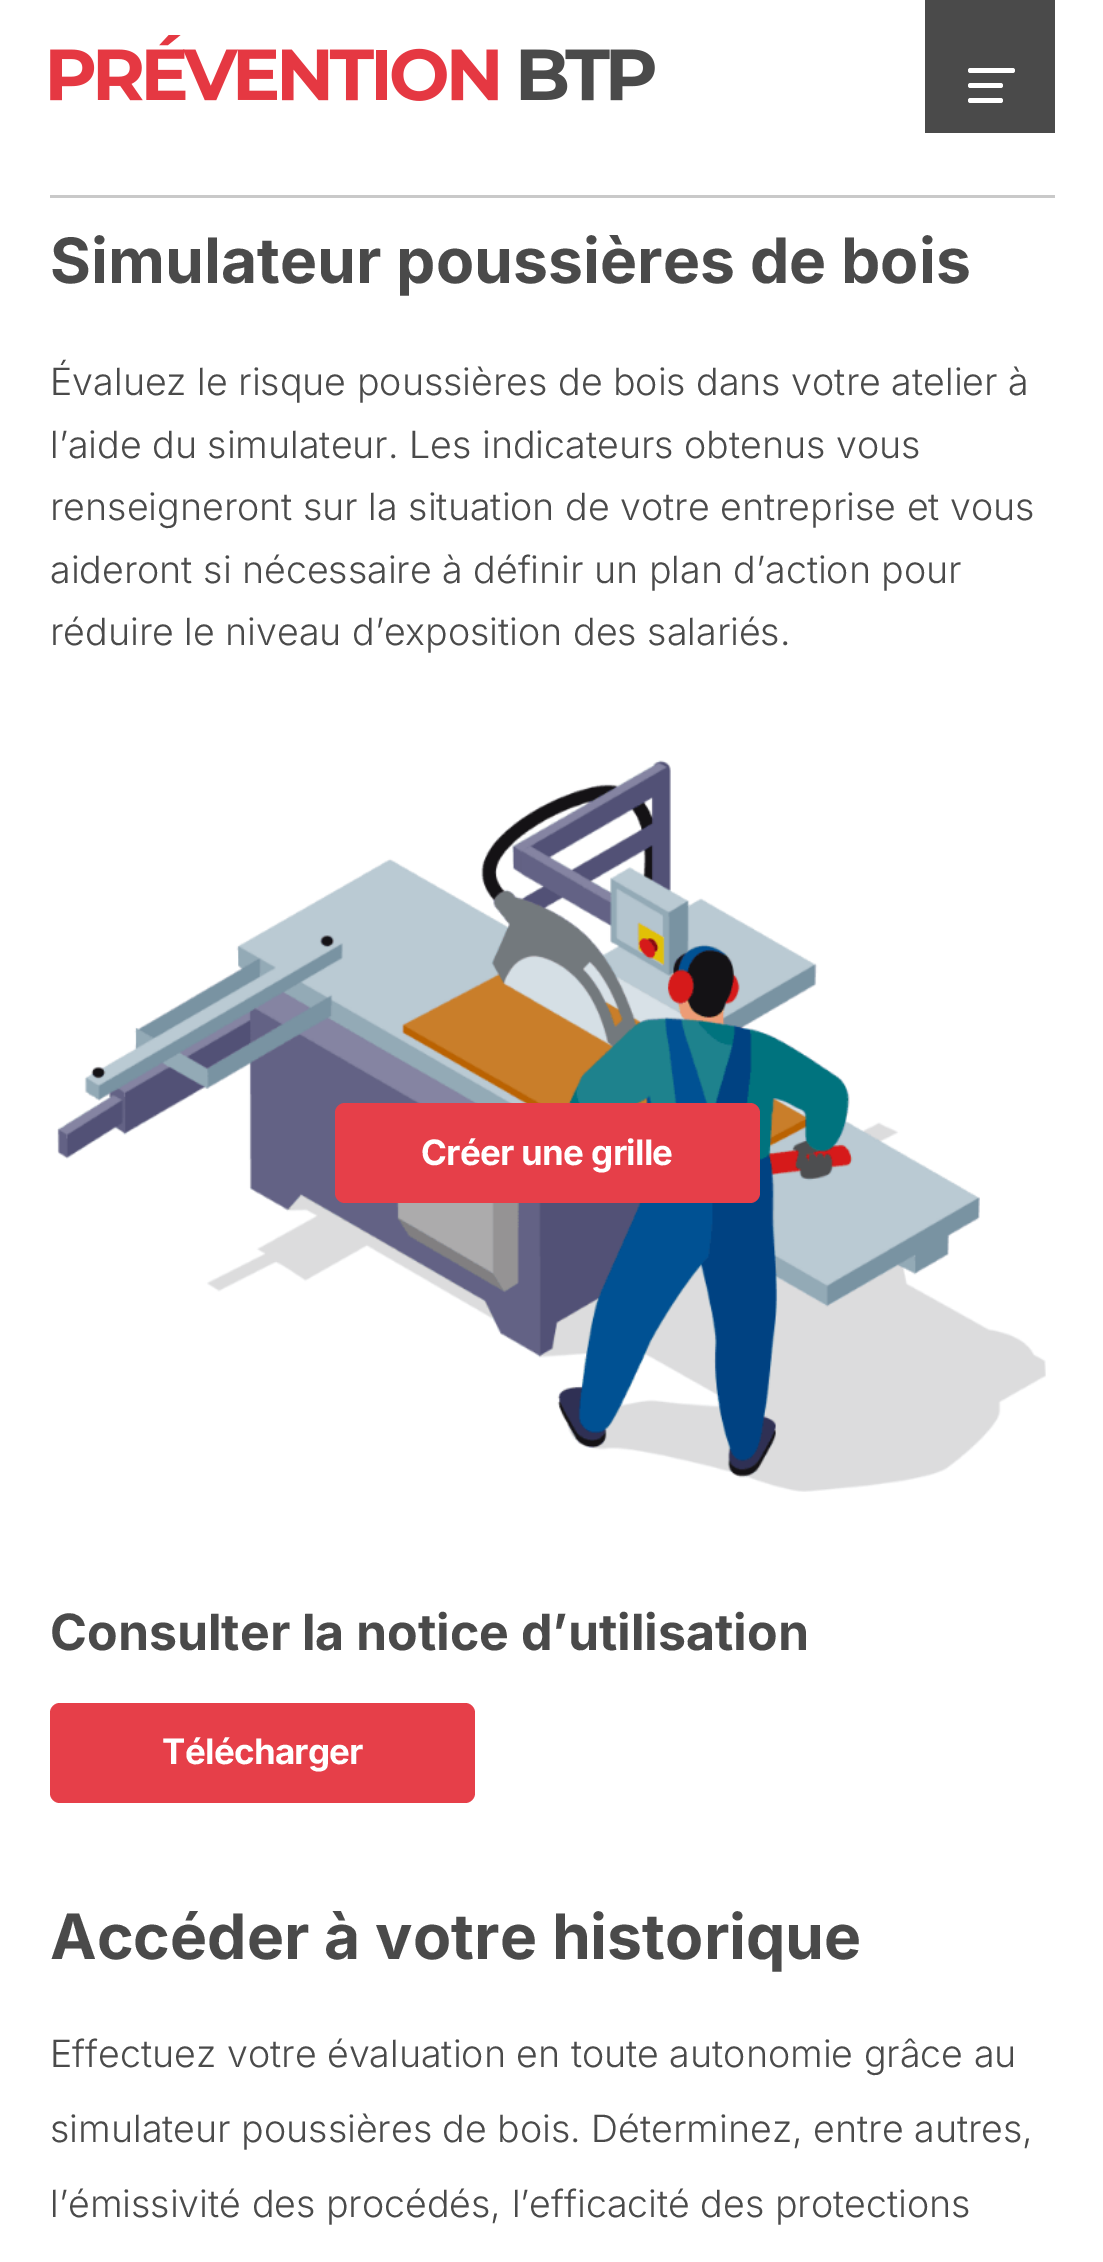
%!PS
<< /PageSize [1103 2262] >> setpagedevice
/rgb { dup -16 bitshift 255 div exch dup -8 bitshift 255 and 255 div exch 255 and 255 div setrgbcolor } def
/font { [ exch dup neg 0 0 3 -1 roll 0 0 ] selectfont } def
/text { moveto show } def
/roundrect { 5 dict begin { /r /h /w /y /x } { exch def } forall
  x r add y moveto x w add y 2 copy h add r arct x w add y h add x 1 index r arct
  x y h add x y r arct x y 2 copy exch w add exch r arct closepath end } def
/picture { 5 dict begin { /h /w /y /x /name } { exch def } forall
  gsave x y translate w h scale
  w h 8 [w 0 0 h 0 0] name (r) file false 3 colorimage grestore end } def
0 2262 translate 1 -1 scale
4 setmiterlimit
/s1 { /Inter-Bold 62.5 font 16#4A4A4A rgb } def
/s2 { /Inter-Light 37.5 font 16#4A4A4A rgb } def
/s3 { /Inter-Bold 50 font 16#4A4A4A rgb } def
16#FFFFFF rgb
0 0 1103 2262 rectfill
16#C9C9C9 rgb
50 195 1005 3 rectfill
(pic1.raw) 50 35 605 66 picture
16#4A4A4A rgb
925 0 130 133 rectfill
16#FFFFFF rgb
968 68 47 5 2.5 roundrect fill
968 83 35 5 2.5 roundrect fill
968 98 35 5 2.5 roundrect fill
s1
(Simulateur poussières de bois) 50 283 text
s2
(Évaluez le risque poussières de bois dans votre atelier à) 50 395 text
(l’aide du simulateur. Les indicateurs obtenus vous) 50 458 text
(renseigneront sur la situation de votre entreprise et vous) 50 520 text
(aideront si nécessaire à définir un plan d’action pour) 50 583 text
(réduire le niveau d’exposition des salariés.) 50 645 text
(pic2.raw) 57 760 989 732 picture
16#E63F49 rgb
335 1103 425 100 10 roundrect fill
/Inter-Bold 35 font
16#FFFFFF rgb
421 1165 moveto -0.7 0 (Créer une grille) ashow
s3
(Consulter la notice d’utilisation) 50 1650 text
16#E63F49 rgb
50 1703 425 100 10 roundrect fill
/Inter-Bold 35 font
16#FFFFFF rgb
162 1764 moveto -0.7 0 (Télécharger) ashow
s1
(Accéder à votre historique) 50 1959 text
s2
(Effectuez votre évaluation en toute autonomie grâce au) 50 2067 text
(simulateur poussières de bois. Déterminez, entre autres,) 50 2142 text
(l’émissivité des procédés, l’efficacité des protections) 50 2217 text
showpage
